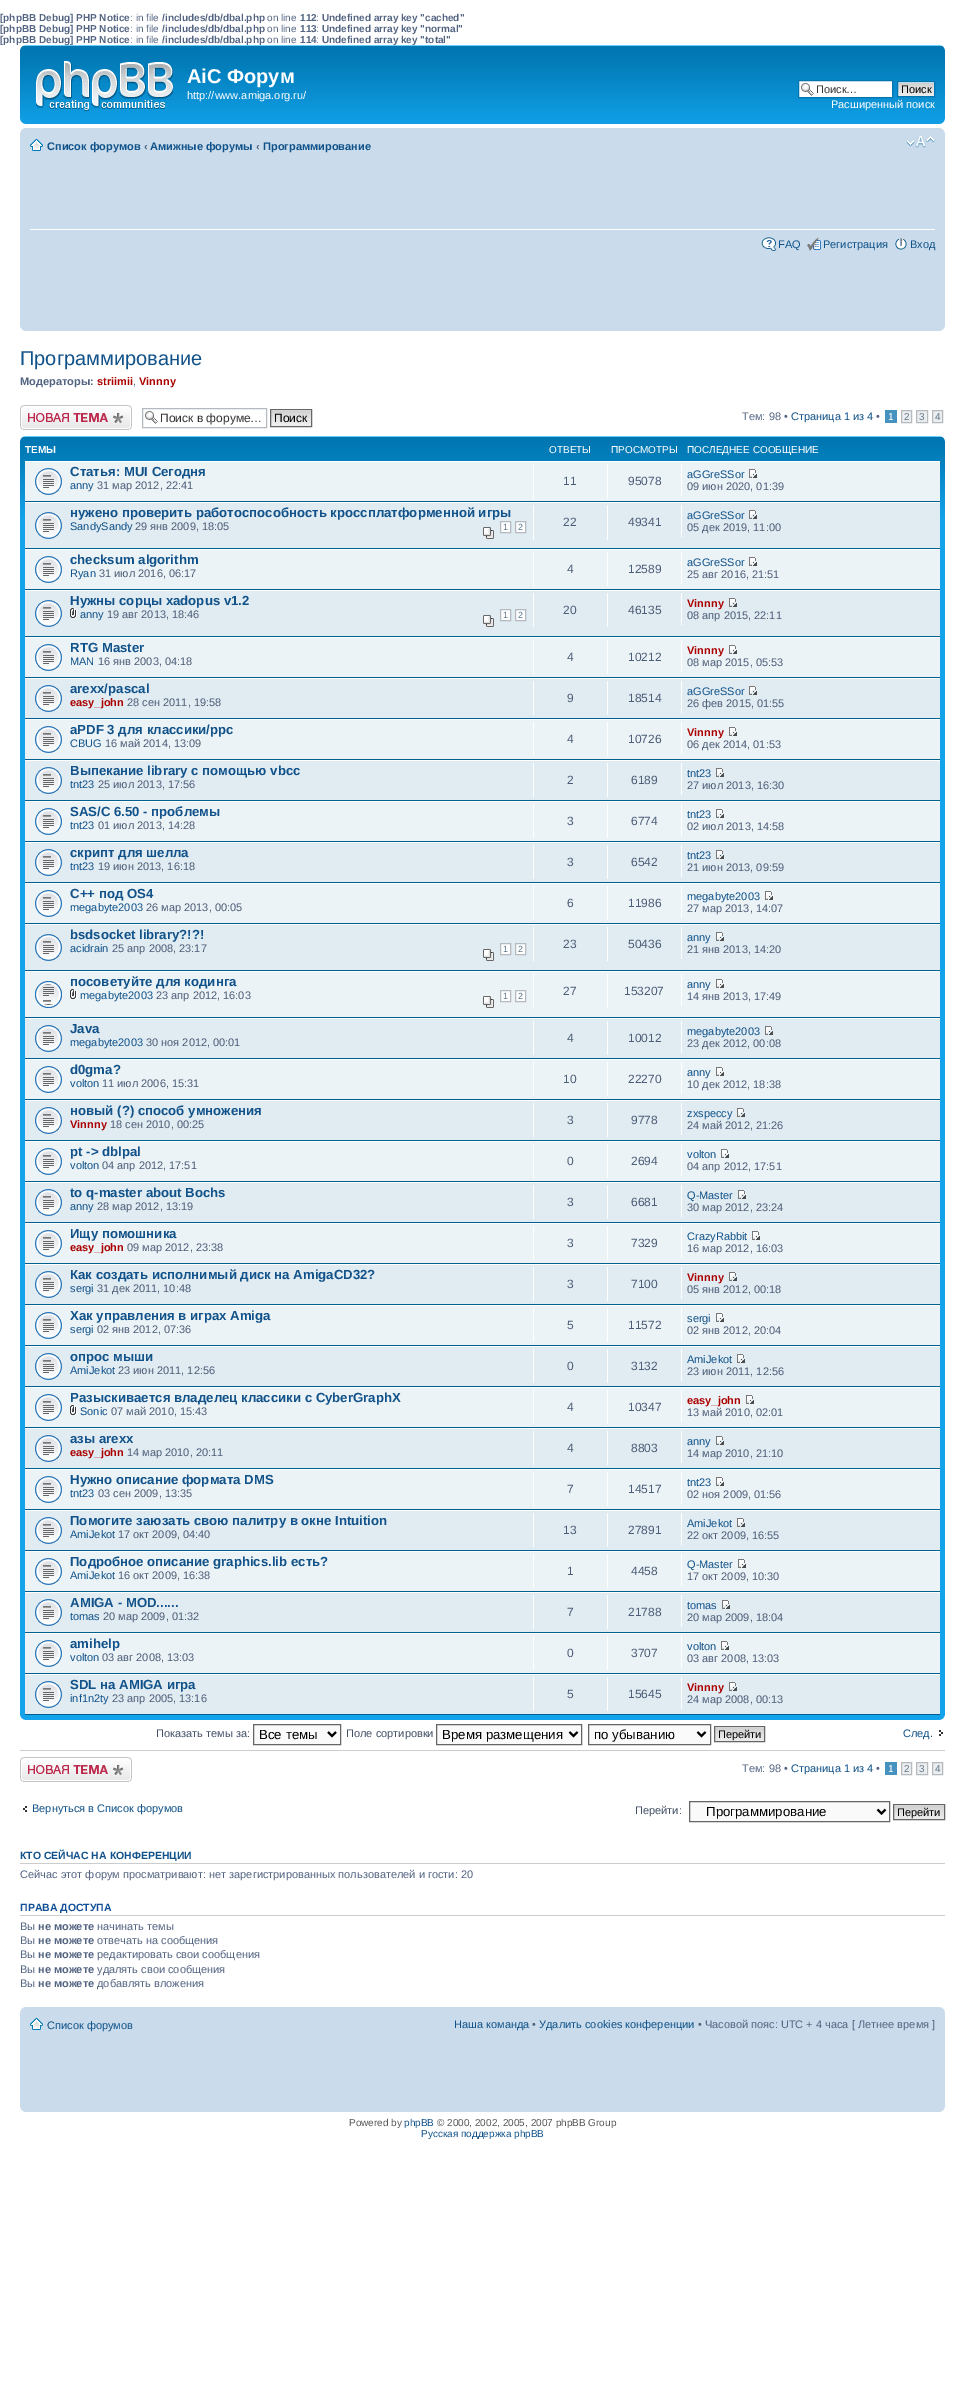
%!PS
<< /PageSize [965 2407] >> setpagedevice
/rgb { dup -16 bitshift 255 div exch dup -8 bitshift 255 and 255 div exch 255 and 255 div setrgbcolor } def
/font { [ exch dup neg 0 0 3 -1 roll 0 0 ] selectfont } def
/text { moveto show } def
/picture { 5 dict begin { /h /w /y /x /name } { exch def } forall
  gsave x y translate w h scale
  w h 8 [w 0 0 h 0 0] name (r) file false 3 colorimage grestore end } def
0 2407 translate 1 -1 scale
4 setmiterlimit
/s1 { /LiberationSans-Bold 10 font 16#536482 rgb } def
/s2 { /LiberationSans-Regular 10 font 16#536482 rgb } def
/s3 { /LiberationSans-Bold 20 font 16#FFFFFF rgb } def
/s4 { /LiberationSans-Regular 11 font 16#FFFFFF rgb } def
/s5 { /LiberationSans-Regular 11 font 16#333333 rgb } def
/s6 { /LiberationSans-Regular 11 font 16#000000 rgb } def
/s7 { /LiberationSans-Bold 11 font 16#105289 rgb } def
/s8 { /LiberationSans-Bold 11 font 16#536482 rgb } def
/s9 { /LiberationSans-Regular 11 font 16#105289 rgb } def
/s10 { /LiberationSans-Regular 20 font 16#105289 rgb } def
/s11 { /LiberationSans-Bold 11 font 16#AA0000 rgb } def
/s12 { /LiberationSans-Regular 11 font 16#536482 rgb } def
/s13 { /LiberationSans-Regular 12 font 16#333333 rgb } def
/s14 { /LiberationSans-Regular 12 font 16#000000 rgb } def
/s15 { /LiberationSans-Regular 10 font 16#FFFFFF rgb } def
/s16 { /LiberationSans-Regular 10 font 16#5C758C rgb } def
/s17 { /LiberationSans-Bold 10 font 16#FFFFFF rgb } def
/s18 { /LiberationSans-Bold 13.2 font 16#105289 rgb } def
/s19 { /LiberationSans-Regular 11 font 16#4C5D77 rgb } def
/s20 { /LiberationSans-Regular 12 font 16#4C5D77 rgb } def
/s21 { /LiberationSans-Regular 9 font 16#5C758C rgb } def
/s22 { /LiberationSans-Regular 11 font 16#425067 rgb } def
/s23 { /LiberationSans-Regular 13.25 font 16#000000 rgb } def
/s24 { /LiberationSans-Bold 10.5 font 16#105289 rgb } def
/s25 { /LiberationSans-Bold 10.5 font 16#115098 rgb } def
/s26 { /LiberationSans-Regular 10 font 16#555555 rgb } def
/s27 { /LiberationSans-Regular 10 font 16#105289 rgb } def
16#FFFFFF rgb
0 0 965 2407 rectfill
s1
([phpBB Debug] PHP Notice) 0 21 text
s2
(: in file) 130 21 text
s1
(/includes/db/dbal.php) 162 21 text
s2
(on line) 267 21 text
s1
(112) 300 21 text
s2
(:) 316 21 text
s1
(Undefined array key "cached") 322 21 text
([phpBB Debug] PHP Notice) 0 32 text
s2
(: in file) 130 32 text
s1
(/includes/db/dbal.php) 162 32 text
s2
(on line) 267 32 text
s1
(113) 300 32 text
s2
(:) 316 32 text
s1
(Undefined array key "normal") 322 32 text
(pic1.raw) 20 45 925 79 picture
(pic2.raw) 20 45 5 5 picture
([phpBB Debug] PHP Notice) 0 43 text
s2
(: in file) 130 43 text
s1
(/includes/db/dbal.php) 162 43 text
s2
(on line) 267 43 text
s1
(114) 300 43 text
s2
(:) 316 43 text
s1
(Undefined array key "total") 322 43 text
(pic3.raw) 940 45 5 5 picture
(pic4.raw) 36 61 137 50 picture
s3
(AiC Форум) 187 83 text
s4
(http://www.amiga.org.ru/) 187 99 text
799 81 93 16 rectfill
(pic5.raw) 801 83 13 13 picture
16#0075B0 rgb
798.5 80.5 94 17 rectstroke
s5
(Поиск…) 816 93 text
(pic6.raw) 898 82 36 14 picture
16#0075B0 rgb
897.5 81.5 37 15 rectstroke
s6
(Поиск) 901 93 text
s4
(Расширенный поиск) 831 108 text
(pic7.raw) 20 119 5 5 picture
(pic8.raw) 940 119 5 5 picture
16#CADCEB rgb
20 128 925 203 rectfill
(pic9.raw) 20 128 5 5 picture
(pic10.raw) 940 128 5 5 picture
16#FFFFFF rgb
30 229 905 1 rectfill
(pic11.raw) 30 139 13 12 picture
s7
(Список форумов) 47 150 text
s8
(‹) 144 150 text
s7
(Амижные форумы) 150 150 text
s8
(‹) 256 150 text
s7
(Программирование) 263 150 text
(pic12.raw) 906 136 29 12 picture
(pic13.raw) 761 237 16 14 picture
s9
(FAQ) 778 248 text
(pic14.raw) 807 238 14 13 picture
(Регистрация) 823 248 text
(pic15.raw) 895 238 12 12 picture
(Вход) 910 248 text
(pic16.raw) 20 326 5 5 picture
(pic17.raw) 940 326 5 5 picture
s10
(Программирование) 20 365 text
s8
(Модераторы:) 20 385 text
s11
(striimii) 97 385 text
s12
(,) 133 385 text
s11
(Vinnny) 139 385 text
(pic18.raw) 20 405 112 25 picture
(pic5.raw) 145 411 13 13 picture
16#B4BAC0 rgb
142.5 408.5 124 19 rectstroke
s13
(Поиск в форуме…) 160 422 text
(pic19.raw) 271 410 40 16 picture
16#666666 rgb
270.5 409.5 41 17 rectstroke
s14
(Поиск) 274 422 text
s12
(Тем: 98 •) 742 420 text
s9
(Страница 1 из 4) 791 420 text
s12
(•) 876 420 text
16#4692BF rgb
885 410 12 13 rectfill
s15
(1) 888 420 text
16#ECEDEE rgb
901.5 410.5 moveto 911.5 410.5 lineto 911.5 422.5 lineto 901.5 422.5 lineto closepath gsave fill grestore
16#B4BAC0 rgb
stroke
s16
(2) 904 420 text
16#ECEDEE rgb
916.5 410.5 moveto 927.5 410.5 lineto 927.5 422.5 lineto 916.5 422.5 lineto closepath gsave fill grestore
16#B4BAC0 rgb
stroke
s16
(3) 919 420 text
16#ECEDEE rgb
932.5 410.5 moveto 942.5 410.5 lineto 942.5 422.5 lineto 932.5 422.5 lineto closepath gsave fill grestore
16#B4BAC0 rgb
stroke
s16
(4) 935 420 text
16#12A3EB rgb
20 518 925 1202 rectfill
(pic20.raw) 20 436 925 82 picture
(pic2.raw) 20 436 5 5 picture
(pic3.raw) 940 436 5 5 picture
s17
(ТЕМЫ) 25 453 text
s15
(ОТВЕТЫ) 549 453 text
(ПРОСМОТРЫ) 611 453 text
(ПОСЛЕДНЕЕ СООБЩЕНИЕ) 687 453 text
16#ECF3F7 rgb
25 462 915 39 rectfill
16#FFFFFF rgb
25 461 915 1 rectfill
16#00608F rgb
25 501 915 1 rectfill
(pic21.raw) 35 468 27 27 picture
s18
(Статья: MUI Сегодня) 70 476 text
s9
(anny) 70 489 text
s19
(31 мар 2012, 22:41) 97 489 text
16#FFFFFF rgb
533 464 1 35 rectfill
s20
(11) 563 485 text
16#FFFFFF rgb
607 464 1 35 rectfill
s20
(95078) 628 485 text
16#FFFFFF rgb
681 464 1 32 rectfill
s9
(aGGreSSor) 687 478 text
(pic22.raw) 749 469 8 9 picture
s19
(09 июн 2020, 01:39) 687 490 text
16#E1EBF2 rgb
25 503 915 45 rectfill
16#FFFFFF rgb
25 502 915 1 rectfill
16#00608F rgb
25 548 915 1 rectfill
(pic23.raw) 35 512 27 27 picture
s18
(нужено проверить работоспособность кроссплатформенной игры) 70 517 text
s9
(SandySandy) 70 530 text
s19
(29 янв 2009, 18:05) 135 530 text
(pic24.raw) 483 527 11 12 picture
16#FFFFFF rgb
500.5 521.5 moveto 510.5 521.5 lineto 510.5 532.5 lineto 500.5 532.5 lineto closepath gsave fill grestore
16#B4BAC0 rgb
stroke
s21
(1) 503 530 text
16#FFFFFF rgb
515.5 521.5 moveto 525.5 521.5 lineto 525.5 532.5 lineto 515.5 532.5 lineto closepath gsave fill grestore
16#B4BAC0 rgb
stroke
s21
(2) 518 530 text
16#FFFFFF rgb
533 505 1 35 rectfill
s20
(22) 563 526 text
16#FFFFFF rgb
607 505 1 35 rectfill
s20
(49341) 628 526 text
16#FFFFFF rgb
681 505 1 32 rectfill
s9
(aGGreSSor) 687 519 text
(pic25.raw) 749 510 8 9 picture
s19
(05 дек 2019, 11:00) 687 531 text
16#ECF3F7 rgb
25 550 915 39 rectfill
16#FFFFFF rgb
25 549 915 1 rectfill
16#00608F rgb
25 589 915 1 rectfill
(pic21.raw) 35 556 27 27 picture
s18
(checksum algorithm) 70 564 text
s9
(Ryan) 70 577 text
s19
(31 июл 2016, 06:17) 99 577 text
16#FFFFFF rgb
533 552 1 34 rectfill
s20
(4) 567 573 text
16#FFFFFF rgb
607 552 1 34 rectfill
s20
(12589) 628 573 text
16#FFFFFF rgb
681 552 1 32 rectfill
s9
(aGGreSSor) 687 566 text
(pic22.raw) 749 557 8 9 picture
s19
(25 авг 2016, 21:51) 687 578 text
16#E1EBF2 rgb
25 591 915 45 rectfill
16#FFFFFF rgb
25 590 915 1 rectfill
16#00608F rgb
25 636 915 1 rectfill
(pic23.raw) 35 600 27 27 picture
s18
(Нужны сорцы xadopus v1.2) 70 605 text
(pic26.raw) 70 608 7 10 picture
s9
(anny) 80 618 text
s19
(19 авг 2013, 18:46) 107 618 text
(pic24.raw) 483 615 11 12 picture
16#FFFFFF rgb
500.5 609.5 moveto 510.5 609.5 lineto 510.5 620.5 lineto 500.5 620.5 lineto closepath gsave fill grestore
16#B4BAC0 rgb
stroke
s21
(1) 503 618 text
16#FFFFFF rgb
515.5 609.5 moveto 525.5 609.5 lineto 525.5 620.5 lineto 515.5 620.5 lineto closepath gsave fill grestore
16#B4BAC0 rgb
stroke
s21
(2) 518 618 text
16#FFFFFF rgb
533 593 1 34 rectfill
s20
(20) 563 614 text
16#FFFFFF rgb
607 593 1 34 rectfill
s20
(46135) 628 614 text
16#FFFFFF rgb
681 593 1 32 rectfill
s11
(Vinnny) 687 607 text
(pic25.raw) 729 598 8 9 picture
s19
(08 апр 2015, 22:11) 687 619 text
16#ECF3F7 rgb
25 638 915 39 rectfill
16#FFFFFF rgb
25 637 915 1 rectfill
16#00608F rgb
25 677 915 1 rectfill
(pic21.raw) 35 644 27 27 picture
s18
(RTG Master) 70 652 text
s9
(MAN) 70 665 text
s19
(16 янв 2003, 04:18) 98 665 text
16#FFFFFF rgb
533 640 1 34 rectfill
s20
(4) 567 661 text
16#FFFFFF rgb
607 640 1 34 rectfill
s20
(10212) 628 661 text
16#FFFFFF rgb
681 640 1 32 rectfill
s11
(Vinnny) 687 654 text
(pic22.raw) 729 645 8 9 picture
s19
(08 мар 2015, 05:53) 687 666 text
16#E1EBF2 rgb
25 679 915 39 rectfill
16#FFFFFF rgb
25 678 915 1 rectfill
16#00608F rgb
25 718 915 1 rectfill
(pic23.raw) 35 685 27 27 picture
s18
(arexx/pascal) 70 693 text
s11
(easy_john) 70 706 text
s19
(28 сен 2011, 19:58) 127 706 text
16#FFFFFF rgb
533 681 1 34 rectfill
s20
(9) 567 702 text
16#FFFFFF rgb
607 681 1 34 rectfill
s20
(18514) 628 702 text
16#FFFFFF rgb
681 681 1 32 rectfill
s9
(aGGreSSor) 687 695 text
(pic25.raw) 749 686 8 9 picture
s19
(26 фев 2015, 01:55) 687 707 text
16#ECF3F7 rgb
25 720 915 39 rectfill
16#FFFFFF rgb
25 719 915 1 rectfill
16#00608F rgb
25 759 915 1 rectfill
(pic21.raw) 35 726 27 27 picture
s18
(aPDF 3 для классики/ppc) 70 734 text
s9
(CBUG) 70 747 text
s19
(16 май 2014, 13:09) 105 747 text
16#FFFFFF rgb
533 722 1 34 rectfill
s20
(4) 567 743 text
16#FFFFFF rgb
607 722 1 34 rectfill
s20
(10726) 628 743 text
16#FFFFFF rgb
681 722 1 32 rectfill
s11
(Vinnny) 687 736 text
(pic22.raw) 729 727 8 9 picture
s19
(06 дек 2014, 01:53) 687 748 text
16#E1EBF2 rgb
25 761 915 39 rectfill
16#FFFFFF rgb
25 760 915 1 rectfill
16#00608F rgb
25 800 915 1 rectfill
(pic23.raw) 35 767 27 27 picture
s18
(Выпекание library с помощью vbcc) 70 775 text
s9
(tnt23) 70 788 text
s19
(25 июл 2013, 17:56) 98 788 text
16#FFFFFF rgb
533 763 1 34 rectfill
s20
(2) 567 784 text
16#FFFFFF rgb
607 763 1 34 rectfill
s20
(6189) 631 784 text
16#FFFFFF rgb
681 763 1 32 rectfill
s9
(tnt23) 687 777 text
(pic25.raw) 716 768 8 9 picture
s19
(27 июл 2013, 16:30) 687 789 text
16#ECF3F7 rgb
25 802 915 39 rectfill
16#FFFFFF rgb
25 801 915 1 rectfill
16#00608F rgb
25 841 915 1 rectfill
(pic21.raw) 35 808 27 27 picture
s18
(SAS/C 6.50 - проблемы) 70 816 text
s9
(tnt23) 70 829 text
s19
(01 июл 2013, 14:28) 98 829 text
16#FFFFFF rgb
533 804 1 34 rectfill
s20
(3) 567 825 text
16#FFFFFF rgb
607 804 1 34 rectfill
s20
(6774) 631 825 text
16#FFFFFF rgb
681 804 1 32 rectfill
s9
(tnt23) 687 818 text
(pic22.raw) 716 809 8 9 picture
s19
(02 июл 2013, 14:58) 687 830 text
16#E1EBF2 rgb
25 843 915 39 rectfill
16#FFFFFF rgb
25 842 915 1 rectfill
16#00608F rgb
25 882 915 1 rectfill
(pic23.raw) 35 849 27 27 picture
s18
(скрипт для шелла) 70 857 text
s9
(tnt23) 70 870 text
s19
(19 июн 2013, 16:18) 98 870 text
16#FFFFFF rgb
533 845 1 34 rectfill
s20
(3) 567 866 text
16#FFFFFF rgb
607 845 1 34 rectfill
s20
(6542) 631 866 text
16#FFFFFF rgb
681 845 1 32 rectfill
s9
(tnt23) 687 859 text
(pic25.raw) 716 850 8 9 picture
s19
(21 июн 2013, 09:59) 687 871 text
16#ECF3F7 rgb
25 884 915 39 rectfill
16#FFFFFF rgb
25 883 915 1 rectfill
16#00608F rgb
25 923 915 1 rectfill
(pic21.raw) 35 890 27 27 picture
s18
(C++ под OS4) 70 898 text
s9
(megabyte2003) 70 911 text
s19
(26 мар 2013, 00:05) 146 911 text
16#FFFFFF rgb
533 886 1 34 rectfill
s20
(6) 567 907 text
16#FFFFFF rgb
607 886 1 34 rectfill
s20
(11986) 628 907 text
16#FFFFFF rgb
681 886 1 32 rectfill
s9
(megabyte2003) 687 900 text
(pic22.raw) 765 891 8 9 picture
s19
(27 мар 2013, 14:07) 687 912 text
16#E1EBF2 rgb
25 925 915 45 rectfill
16#FFFFFF rgb
25 924 915 1 rectfill
16#00608F rgb
25 970 915 1 rectfill
(pic23.raw) 35 934 27 27 picture
s18
(bsdsocket library?!?!) 70 939 text
s9
(acidrain) 70 952 text
s19
(25 апр 2008, 23:17) 112 952 text
(pic24.raw) 483 949 11 12 picture
16#FFFFFF rgb
500.5 943.5 moveto 510.5 943.5 lineto 510.5 954.5 lineto 500.5 954.5 lineto closepath gsave fill grestore
16#B4BAC0 rgb
stroke
s21
(1) 503 952 text
16#FFFFFF rgb
515.5 943.5 moveto 525.5 943.5 lineto 525.5 954.5 lineto 515.5 954.5 lineto closepath gsave fill grestore
16#B4BAC0 rgb
stroke
s21
(2) 518 952 text
16#FFFFFF rgb
533 927 1 34 rectfill
s20
(23) 563 948 text
16#FFFFFF rgb
607 927 1 34 rectfill
s20
(50436) 628 948 text
16#FFFFFF rgb
681 927 1 32 rectfill
s9
(anny) 687 941 text
(pic25.raw) 716 932 8 9 picture
s19
(21 янв 2013, 14:20) 687 953 text
16#ECF3F7 rgb
25 972 915 45 rectfill
16#FFFFFF rgb
25 971 915 1 rectfill
16#00608F rgb
25 1017 915 1 rectfill
(pic27.raw) 35 981 27 27 picture
s18
(посоветуйте для кодинга) 70 986 text
(pic28.raw) 70 989 7 10 picture
s9
(megabyte2003) 80 999 text
s19
(23 апр 2012, 16:03) 156 999 text
(pic29.raw) 483 996 11 12 picture
16#FFFFFF rgb
500.5 990.5 moveto 510.5 990.5 lineto 510.5 1001.5 lineto 500.5 1001.5 lineto closepath gsave fill grestore
16#B4BAC0 rgb
stroke
s21
(1) 503 999 text
16#FFFFFF rgb
515.5 990.5 moveto 525.5 990.5 lineto 525.5 1001.5 lineto 515.5 1001.5 lineto closepath gsave fill grestore
16#B4BAC0 rgb
stroke
s21
(2) 518 999 text
16#FFFFFF rgb
533 974 1 34 rectfill
s20
(27) 563 995 text
16#FFFFFF rgb
607 974 1 34 rectfill
s20
(153207) 624 995 text
16#FFFFFF rgb
681 974 1 32 rectfill
s9
(anny) 687 988 text
(pic22.raw) 716 979 8 9 picture
s19
(14 янв 2013, 17:49) 687 1000 text
16#E1EBF2 rgb
25 1019 915 39 rectfill
16#FFFFFF rgb
25 1018 915 1 rectfill
16#00608F rgb
25 1058 915 1 rectfill
(pic23.raw) 35 1025 27 27 picture
s18
(Java) 70 1033 text
s9
(megabyte2003) 70 1046 text
s19
(30 ноя 2012, 00:01) 146 1046 text
16#FFFFFF rgb
533 1021 1 34 rectfill
s20
(4) 567 1042 text
16#FFFFFF rgb
607 1021 1 34 rectfill
s20
(10012) 628 1042 text
16#FFFFFF rgb
681 1021 1 32 rectfill
s9
(megabyte2003) 687 1035 text
(pic25.raw) 765 1026 8 9 picture
s19
(23 дек 2012, 00:08) 687 1047 text
16#ECF3F7 rgb
25 1060 915 39 rectfill
16#FFFFFF rgb
25 1059 915 1 rectfill
16#00608F rgb
25 1099 915 1 rectfill
(pic21.raw) 35 1066 27 27 picture
s18
(d0gma?) 70 1074 text
s9
(volton) 70 1087 text
s19
(11 июл 2006, 15:31) 102 1087 text
16#FFFFFF rgb
533 1062 1 34 rectfill
s20
(10) 563 1083 text
16#FFFFFF rgb
607 1062 1 34 rectfill
s20
(22270) 628 1083 text
16#FFFFFF rgb
681 1062 1 32 rectfill
s9
(anny) 687 1076 text
(pic22.raw) 716 1067 8 9 picture
s19
(10 дек 2012, 18:38) 687 1088 text
16#E1EBF2 rgb
25 1101 915 39 rectfill
16#FFFFFF rgb
25 1100 915 1 rectfill
16#00608F rgb
25 1140 915 1 rectfill
(pic23.raw) 35 1107 27 27 picture
s18
(новый \(?\) способ умножения) 70 1115 text
s11
(Vinnny) 70 1128 text
s19
(18 сен 2010, 00:25) 110 1128 text
16#FFFFFF rgb
533 1103 1 34 rectfill
s20
(3) 567 1124 text
16#FFFFFF rgb
607 1103 1 34 rectfill
s20
(9778) 631 1124 text
16#FFFFFF rgb
681 1103 1 32 rectfill
s9
(zxspeccy) 687 1117 text
(pic25.raw) 737 1108 8 9 picture
s19
(24 май 2012, 21:26) 687 1129 text
16#ECF3F7 rgb
25 1142 915 39 rectfill
16#FFFFFF rgb
25 1141 915 1 rectfill
16#00608F rgb
25 1181 915 1 rectfill
(pic21.raw) 35 1148 27 27 picture
s18
(pt -> dblpal) 70 1156 text
s9
(volton) 70 1169 text
s19
(04 апр 2012, 17:51) 102 1169 text
16#FFFFFF rgb
533 1144 1 34 rectfill
s20
(0) 567 1165 text
16#FFFFFF rgb
607 1144 1 34 rectfill
s20
(2694) 631 1165 text
16#FFFFFF rgb
681 1144 1 32 rectfill
s9
(volton) 687 1158 text
(pic22.raw) 721 1149 8 9 picture
s19
(04 апр 2012, 17:51) 687 1170 text
16#E1EBF2 rgb
25 1183 915 39 rectfill
16#FFFFFF rgb
25 1182 915 1 rectfill
16#00608F rgb
25 1222 915 1 rectfill
(pic23.raw) 35 1189 27 27 picture
s18
(to q-master about Bochs) 70 1197 text
s9
(anny) 70 1210 text
s19
(28 мар 2012, 13:19) 97 1210 text
16#FFFFFF rgb
533 1185 1 34 rectfill
s20
(3) 567 1206 text
16#FFFFFF rgb
607 1185 1 34 rectfill
s20
(6681) 631 1206 text
16#FFFFFF rgb
681 1185 1 32 rectfill
s9
(Q-Master) 687 1199 text
(pic25.raw) 738 1190 8 9 picture
s19
(30 мар 2012, 23:24) 687 1211 text
16#ECF3F7 rgb
25 1224 915 39 rectfill
16#FFFFFF rgb
25 1223 915 1 rectfill
16#00608F rgb
25 1263 915 1 rectfill
(pic21.raw) 35 1230 27 27 picture
s18
(Ищу помошника) 70 1238 text
s11
(easy_john) 70 1251 text
s19
(09 мар 2012, 23:38) 127 1251 text
16#FFFFFF rgb
533 1226 1 34 rectfill
s20
(3) 567 1247 text
16#FFFFFF rgb
607 1226 1 34 rectfill
s20
(7329) 631 1247 text
16#FFFFFF rgb
681 1226 1 32 rectfill
s9
(CrazyRabbit) 687 1240 text
(pic22.raw) 752 1231 8 9 picture
s19
(16 мар 2012, 16:03) 687 1252 text
16#E1EBF2 rgb
25 1265 915 39 rectfill
16#FFFFFF rgb
25 1264 915 1 rectfill
16#00608F rgb
25 1304 915 1 rectfill
(pic23.raw) 35 1271 27 27 picture
s18
(Как создать исполнимый диск на AmigaCD32?) 70 1279 text
s9
(sergi) 70 1292 text
s19
(31 дек 2011, 10:48) 97 1292 text
16#FFFFFF rgb
533 1267 1 34 rectfill
s20
(3) 567 1288 text
16#FFFFFF rgb
607 1267 1 34 rectfill
s20
(7100) 631 1288 text
16#FFFFFF rgb
681 1267 1 32 rectfill
s11
(Vinnny) 687 1281 text
(pic25.raw) 729 1272 8 9 picture
s19
(05 янв 2012, 00:18) 687 1293 text
16#ECF3F7 rgb
25 1306 915 39 rectfill
16#FFFFFF rgb
25 1305 915 1 rectfill
16#00608F rgb
25 1345 915 1 rectfill
(pic21.raw) 35 1312 27 27 picture
s18
(Хак управления в играх Amiga) 70 1320 text
s9
(sergi) 70 1333 text
s19
(02 янв 2012, 07:36) 97 1333 text
16#FFFFFF rgb
533 1308 1 34 rectfill
s20
(5) 567 1329 text
16#FFFFFF rgb
607 1308 1 34 rectfill
s20
(11572) 628 1329 text
16#FFFFFF rgb
681 1308 1 32 rectfill
s9
(sergi) 687 1322 text
(pic22.raw) 716 1313 8 9 picture
s19
(02 янв 2012, 20:04) 687 1334 text
16#E1EBF2 rgb
25 1347 915 39 rectfill
16#FFFFFF rgb
25 1346 915 1 rectfill
16#00608F rgb
25 1386 915 1 rectfill
(pic23.raw) 35 1353 27 27 picture
s18
(опрос мыши) 70 1361 text
s9
(AmiJekot) 70 1374 text
s19
(23 июн 2011, 12:56) 118 1374 text
16#FFFFFF rgb
533 1349 1 34 rectfill
s20
(0) 567 1370 text
16#FFFFFF rgb
607 1349 1 34 rectfill
s20
(3132) 631 1370 text
16#FFFFFF rgb
681 1349 1 32 rectfill
s9
(AmiJekot) 687 1363 text
(pic25.raw) 737 1354 8 9 picture
s19
(23 июн 2011, 12:56) 687 1375 text
16#ECF3F7 rgb
25 1388 915 39 rectfill
16#FFFFFF rgb
25 1387 915 1 rectfill
16#00608F rgb
25 1427 915 1 rectfill
(pic21.raw) 35 1394 27 27 picture
s18
(Разыскивается владелец классики с CyberGraphX) 70 1402 text
(pic28.raw) 70 1405 7 10 picture
s9
(Sonic) 80 1415 text
s19
(07 май 2010, 15:43) 111 1415 text
16#FFFFFF rgb
533 1390 1 34 rectfill
s20
(4) 567 1411 text
16#FFFFFF rgb
607 1390 1 34 rectfill
s20
(10347) 628 1411 text
16#FFFFFF rgb
681 1390 1 32 rectfill
s11
(easy_john) 687 1404 text
(pic22.raw) 746 1395 8 9 picture
s19
(13 май 2010, 02:01) 687 1416 text
16#E1EBF2 rgb
25 1429 915 39 rectfill
16#FFFFFF rgb
25 1428 915 1 rectfill
16#00608F rgb
25 1468 915 1 rectfill
(pic23.raw) 35 1435 27 27 picture
s18
(азы arexx) 70 1443 text
s11
(easy_john) 70 1456 text
s19
(14 мар 2010, 20:11) 127 1456 text
16#FFFFFF rgb
533 1431 1 34 rectfill
s20
(4) 567 1452 text
16#FFFFFF rgb
607 1431 1 34 rectfill
s20
(8803) 631 1452 text
16#FFFFFF rgb
681 1431 1 32 rectfill
s9
(anny) 687 1445 text
(pic25.raw) 716 1436 8 9 picture
s19
(14 мар 2010, 21:10) 687 1457 text
16#ECF3F7 rgb
25 1470 915 39 rectfill
16#FFFFFF rgb
25 1469 915 1 rectfill
16#00608F rgb
25 1509 915 1 rectfill
(pic21.raw) 35 1476 27 27 picture
s18
(Нужно описание формата DMS) 70 1484 text
s9
(tnt23) 70 1497 text
s19
(03 сен 2009, 13:35) 98 1497 text
16#FFFFFF rgb
533 1472 1 34 rectfill
s20
(7) 567 1493 text
16#FFFFFF rgb
607 1472 1 34 rectfill
s20
(14517) 628 1493 text
16#FFFFFF rgb
681 1472 1 32 rectfill
s9
(tnt23) 687 1486 text
(pic22.raw) 716 1477 8 9 picture
s19
(02 ноя 2009, 01:56) 687 1498 text
16#E1EBF2 rgb
25 1511 915 39 rectfill
16#FFFFFF rgb
25 1510 915 1 rectfill
16#00608F rgb
25 1550 915 1 rectfill
(pic23.raw) 35 1517 27 27 picture
s18
(Помогите заюзать свою палитру в окне Intuition) 70 1525 text
s9
(AmiJekot) 70 1538 text
s19
(17 окт 2009, 04:40) 118 1538 text
16#FFFFFF rgb
533 1513 1 34 rectfill
s20
(13) 563 1534 text
16#FFFFFF rgb
607 1513 1 34 rectfill
s20
(27891) 628 1534 text
16#FFFFFF rgb
681 1513 1 32 rectfill
s9
(AmiJekot) 687 1527 text
(pic25.raw) 737 1518 8 9 picture
s19
(22 окт 2009, 16:55) 687 1539 text
16#ECF3F7 rgb
25 1552 915 39 rectfill
16#FFFFFF rgb
25 1551 915 1 rectfill
16#00608F rgb
25 1591 915 1 rectfill
(pic21.raw) 35 1558 27 27 picture
s18
(Подробное описание graphics.lib есть?) 70 1566 text
s9
(AmiJekot) 70 1579 text
s19
(16 окт 2009, 16:38) 118 1579 text
16#FFFFFF rgb
533 1554 1 34 rectfill
s20
(1) 567 1575 text
16#FFFFFF rgb
607 1554 1 34 rectfill
s20
(4458) 631 1575 text
16#FFFFFF rgb
681 1554 1 32 rectfill
s9
(Q-Master) 687 1568 text
(pic22.raw) 738 1559 8 9 picture
s19
(17 окт 2009, 10:30) 687 1580 text
16#E1EBF2 rgb
25 1593 915 39 rectfill
16#FFFFFF rgb
25 1592 915 1 rectfill
16#00608F rgb
25 1632 915 1 rectfill
(pic23.raw) 35 1599 27 27 picture
s18
(AMIGA - MOD......) 70 1607 text
s9
(tomas) 70 1620 text
s19
(20 мар 2009, 01:32) 103 1620 text
16#FFFFFF rgb
533 1595 1 34 rectfill
s20
(7) 567 1616 text
16#FFFFFF rgb
607 1595 1 34 rectfill
s20
(21788) 628 1616 text
16#FFFFFF rgb
681 1595 1 32 rectfill
s9
(tomas) 687 1609 text
(pic25.raw) 722 1600 8 9 picture
s19
(20 мар 2009, 18:04) 687 1621 text
16#ECF3F7 rgb
25 1634 915 39 rectfill
16#FFFFFF rgb
25 1633 915 1 rectfill
16#00608F rgb
25 1673 915 1 rectfill
(pic21.raw) 35 1640 27 27 picture
s18
(amihelp) 70 1648 text
s9
(volton) 70 1661 text
s19
(03 авг 2008, 13:03) 102 1661 text
16#FFFFFF rgb
533 1636 1 34 rectfill
s20
(0) 567 1657 text
16#FFFFFF rgb
607 1636 1 34 rectfill
s20
(3707) 631 1657 text
16#FFFFFF rgb
681 1636 1 32 rectfill
s9
(volton) 687 1650 text
(pic22.raw) 721 1641 8 9 picture
s19
(03 авг 2008, 13:03) 687 1662 text
16#E1EBF2 rgb
25 1675 915 39 rectfill
16#FFFFFF rgb
25 1674 915 1 rectfill
16#00608F rgb
25 1714 915 1 rectfill
(pic23.raw) 35 1681 27 27 picture
s18
(SDL на AMIGA игра) 70 1689 text
s9
(inf1n2ty) 70 1702 text
s19
(23 апр 2005, 13:16) 112 1702 text
16#FFFFFF rgb
533 1677 1 34 rectfill
s20
(5) 567 1698 text
16#FFFFFF rgb
607 1677 1 34 rectfill
s20
(15645) 628 1698 text
16#FFFFFF rgb
681 1677 1 32 rectfill
s11
(Vinnny) 687 1691 text
(pic25.raw) 729 1682 8 9 picture
s19
(24 мар 2008, 00:13) 687 1703 text
(pic30.raw) 20 1715 5 5 picture
(pic31.raw) 940 1715 5 5 picture
s22
(Показать темы за:) 156 1737 text
16#FAFAFA rgb
253.5 1724.5 moveto 340.5 1724.5 lineto 340.5 1744.5 lineto 253.5 1744.5 lineto closepath gsave fill grestore
16#666666 rgb
stroke
16#000000 rgb
2 setlinewidth
328 1732 moveto 332 1736 lineto 336 1732 lineto stroke
s23
(Все темы) 259 1739 text
s22
(Поле сортировки) 346 1737 text
16#FAFAFA rgb
436.5 1724.5 moveto 581.5 1724.5 lineto 581.5 1744.5 lineto 436.5 1744.5 lineto closepath gsave fill grestore
16#666666 rgb
1 setlinewidth
stroke
16#000000 rgb
2 setlinewidth
569.5 1732 moveto 573.5 1736 lineto 577.5 1732 lineto stroke
s23
(Время размещения) 442 1739 text
16#FAFAFA rgb
588.5 1724.5 moveto 710.5 1724.5 lineto 710.5 1744.5 lineto 588.5 1744.5 lineto closepath gsave fill grestore
16#666666 rgb
1 setlinewidth
stroke
16#000000 rgb
2 setlinewidth
697.5 1732 moveto 701.5 1736 lineto 705.5 1732 lineto stroke
(по убыванию) 594 1739 text
(pic32.raw) 715 1727 49 14 picture
16#666666 rgb
1 setlinewidth
714.5 1726.5 50 15 rectstroke
s6
(Перейти) 718 1738 text
(pic33.raw) 939 1730 4 6 picture
s9
(След.) 903 1737 text
16#CCCCCC rgb
20 1750 925 1 rectfill
(pic18.raw) 20 1757 112 25 picture
s12
(Тем: 98 •) 742 1772 text
s9
(Страница 1 из 4) 791 1772 text
s12
(•) 876 1772 text
16#4692BF rgb
885 1762 12 13 rectfill
s15
(1) 888 1772 text
16#ECEDEE rgb
901.5 1762.5 moveto 911.5 1762.5 lineto 911.5 1774.5 lineto 901.5 1774.5 lineto closepath gsave fill grestore
16#B4BAC0 rgb
stroke
s16
(2) 904 1772 text
16#ECEDEE rgb
916.5 1762.5 moveto 927.5 1762.5 lineto 927.5 1774.5 lineto 916.5 1774.5 lineto closepath gsave fill grestore
16#B4BAC0 rgb
stroke
s16
(3) 919 1772 text
16#ECEDEE rgb
932.5 1762.5 moveto 942.5 1762.5 lineto 942.5 1774.5 lineto 932.5 1774.5 lineto closepath gsave fill grestore
16#B4BAC0 rgb
stroke
s16
(4) 935 1772 text
(pic34.raw) 23 1806 4 6 picture
s9
(Вернуться в Список форумов) 32 1812 text
s22
(Перейти:) 635 1814 text
16#FAFAFA rgb
689.5 1801.5 moveto 889.5 1801.5 lineto 889.5 1821.5 lineto 689.5 1821.5 lineto closepath gsave fill grestore
16#666666 rgb
stroke
16#000000 rgb
2 setlinewidth
877.5 1809.5 moveto 881.5 1813.5 lineto 885.5 1809.5 lineto stroke
s23
(Программирование) 706 1816 text
(pic35.raw) 894 1805 50 14 picture
16#666666 rgb
1 setlinewidth
893.5 1804.5 51 15 rectstroke
s6
(Перейти) 897 1816 text
16#CCCCCC rgb
20 1863 925 1 rectfill
s24
(КТО СЕЙЧАС НА КОНФЕРЕНЦИИ) 20 1859 text
s12
(Сейчас этот форум просматривают: нет зарегистрированных пользователей и гости: 20) 20 1878 text
16#CCCCCC rgb
20 1915 925 1 rectfill
s25
(ПРАВА ДОСТУПА) 20 1911 text
s12
(Вы) 20 1930 text
s8
(не можете) 38 1930 text
s12
(начинать темы) 97 1930 text
(Вы) 20 1944 text
s8
(не можете) 38 1944 text
s12
(отвечать на сообщения) 97 1944 text
(Вы) 20 1958 text
s8
(не можете) 38 1958 text
s12
(редактировать свои сообщения) 97 1958 text
(Вы) 20 1973 text
s8
(не можете) 38 1973 text
s12
(удалять свои сообщения) 97 1973 text
(Вы) 20 1987 text
s8
(не можете) 38 1987 text
s12
(добавлять вложения) 97 1987 text
16#CADCEB rgb
20 2007 925 105 rectfill
(pic9.raw) 20 2007 5 5 picture
(pic10.raw) 940 2007 5 5 picture
(pic11.raw) 30 2018 13 12 picture
s9
(Список форумов) 47 2029 text
(Наша команда) 454 2028 text
s12
(•) 532 2028 text
s9
(Удалить cookies конференции) 539 2028 text
s12
(• Часовой пояс: UTC + 4 часа [ Летнее время ]) 698 2028 text
(pic16.raw) 20 2107 5 5 picture
(pic17.raw) 940 2107 5 5 picture
s26
(Powered by) 349 2126 text
s27
(phpBB) 404 2126 text
s26
(© 2000, 2002, 2005, 2007 phpBB Group) 437 2126 text
s27
(Русская поддержка phpBB) 421 2137 text
showpage
